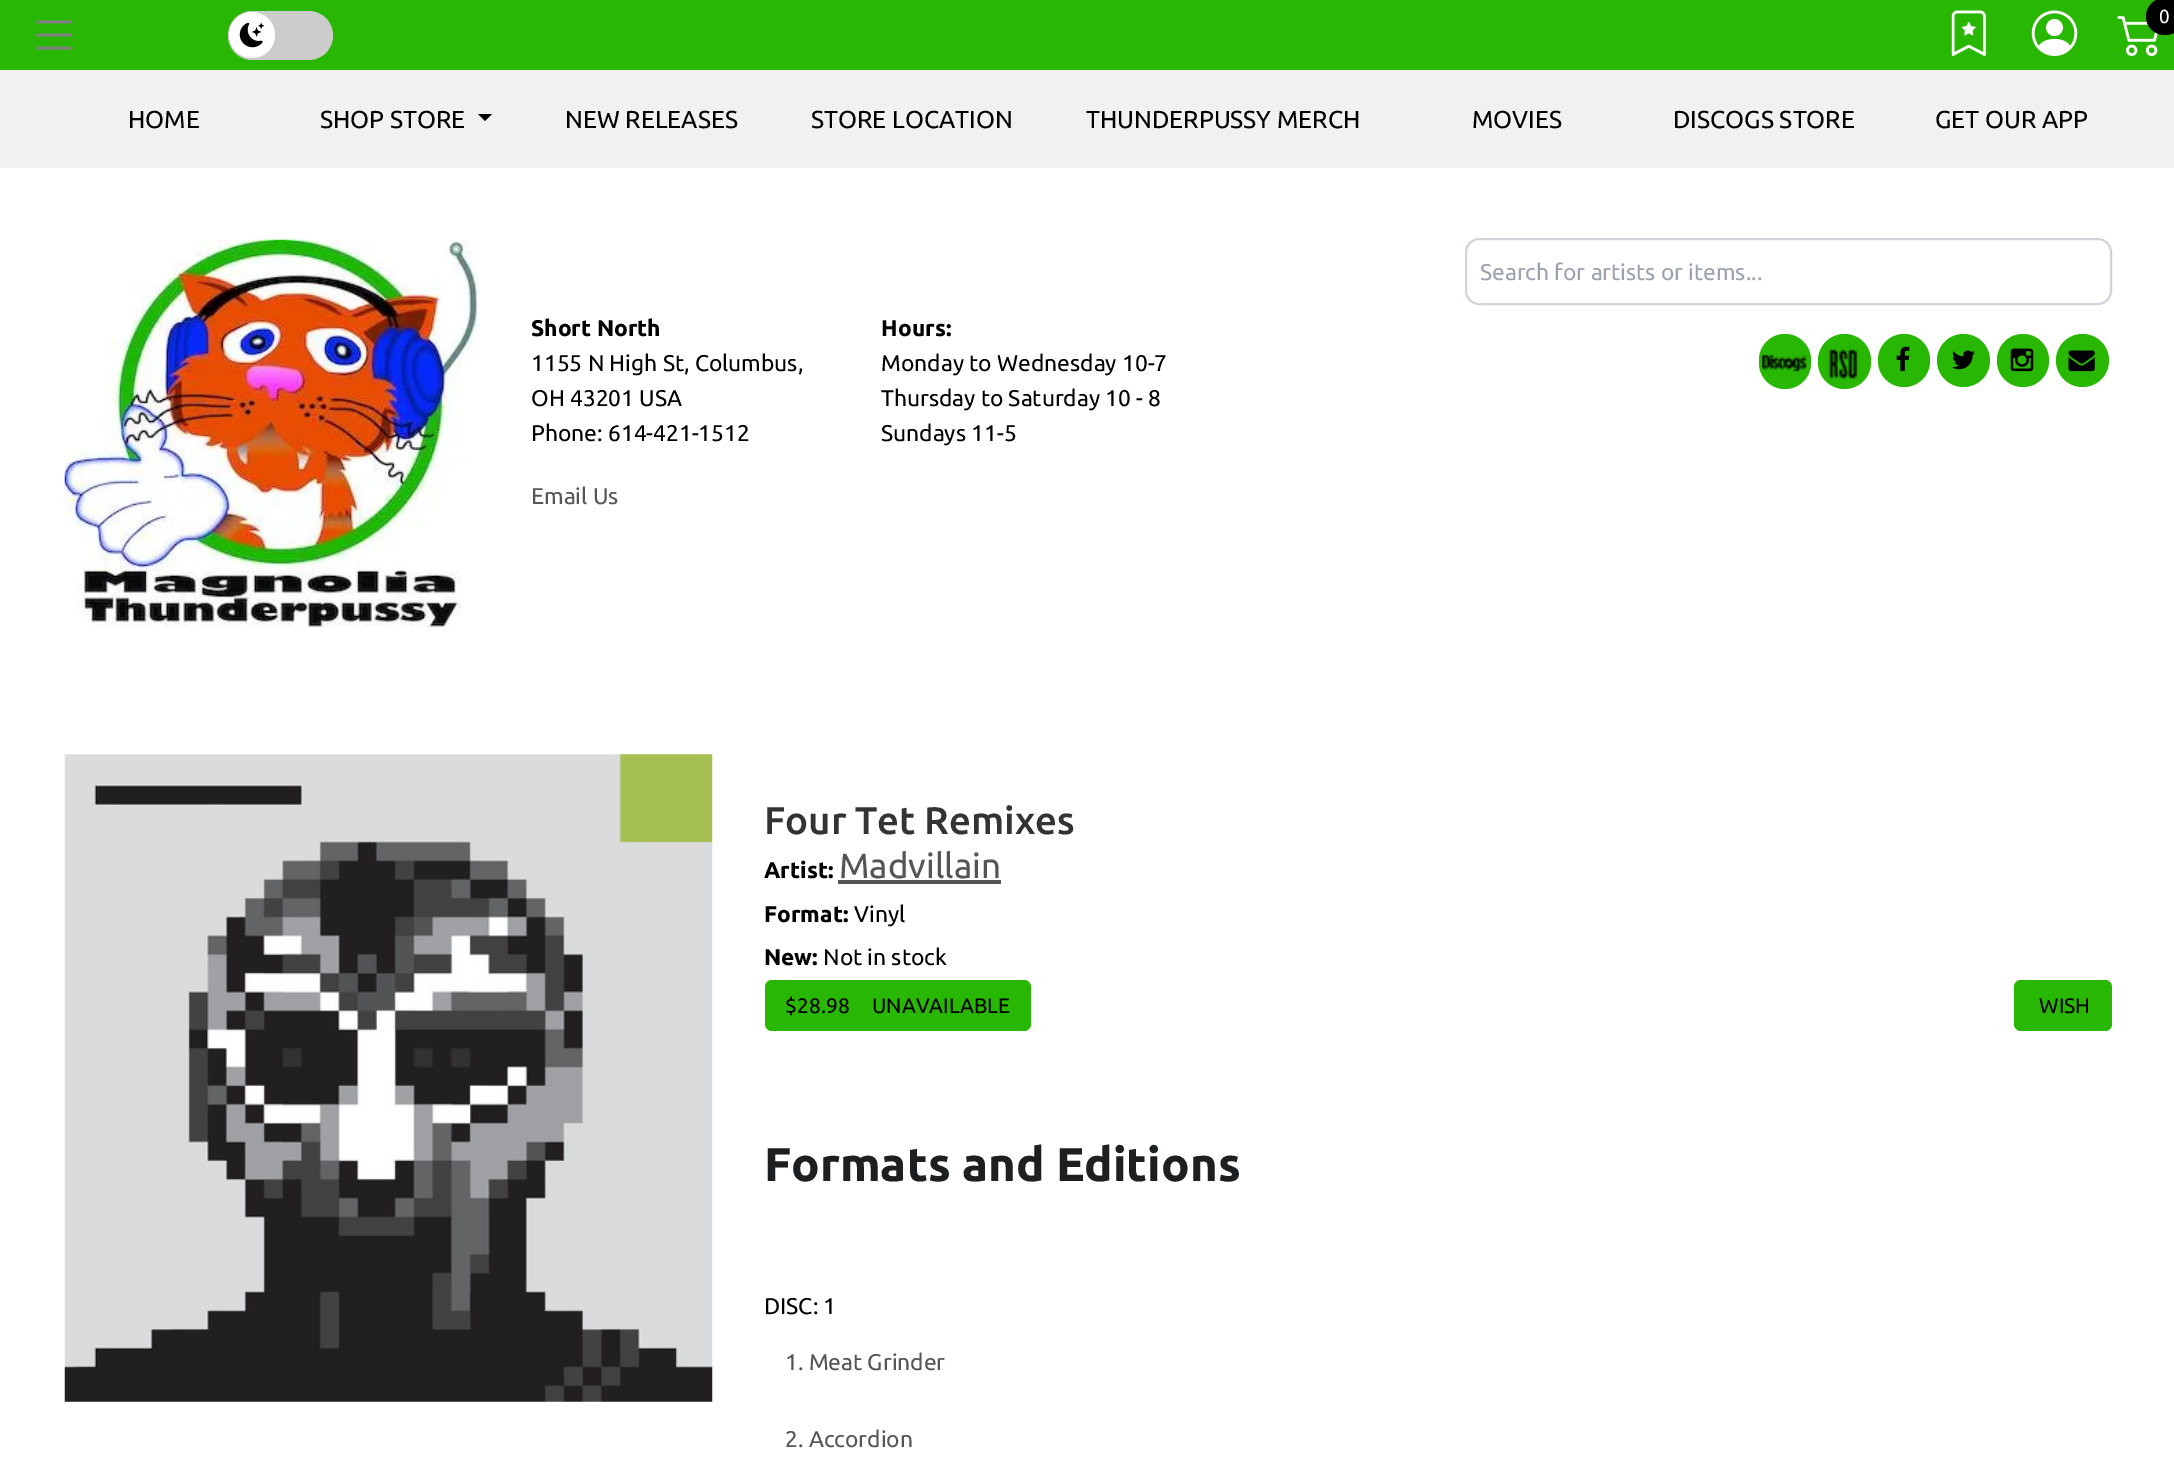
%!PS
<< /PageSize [2174 1473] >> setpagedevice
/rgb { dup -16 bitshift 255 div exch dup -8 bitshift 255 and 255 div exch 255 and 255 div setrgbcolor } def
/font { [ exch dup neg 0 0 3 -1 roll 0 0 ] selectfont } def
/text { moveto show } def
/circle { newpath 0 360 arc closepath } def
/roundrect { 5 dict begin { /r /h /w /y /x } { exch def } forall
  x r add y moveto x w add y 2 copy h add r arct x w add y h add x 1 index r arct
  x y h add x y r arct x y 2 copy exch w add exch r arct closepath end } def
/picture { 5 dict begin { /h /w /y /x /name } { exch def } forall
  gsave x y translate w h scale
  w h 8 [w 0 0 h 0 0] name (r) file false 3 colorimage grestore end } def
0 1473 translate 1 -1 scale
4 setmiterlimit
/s1 { /Ubuntu-Regular 19 font 16#FFFFFF rgb } def
/s2 { /Ubuntu-Regular 24.5 font 16#000000 rgb } def
/s3 { /Ubuntu-Regular 22.75 font 16#9CA3AF rgb } def
/s4 { /Ubuntu-Bold 22.75 font 16#000000 rgb } def
/s5 { /Ubuntu-Regular 22.75 font 16#000000 rgb } def
/s6 { /Ubuntu-Regular 22.75 font 16#555555 rgb } def
/s7 { /Ubuntu-Medium 38.5 font 16#333333 rgb } def
/s8 { /Ubuntu-Regular 35 font 16#555555 rgb } def
/s9 { /Ubuntu-Regular 21 font 16#000000 rgb } def
/s10 { /Ubuntu-Bold 47.25 font 16#1D1F20 rgb } def
16#FFFFFF rgb
0 0 2174 1473 rectfill
16#28B702 rgb
0 0 2174 70 rectfill
(pic1.raw) 36 20 37 30 picture
16#CCCCCC rgb
228 11 105 49 24.5 roundrect fill
16#FFFFFF rgb
252 35 23 circle fill
(pic2.raw) 239 22 26 26 picture
(pic3.raw) 1951 10 35 46 picture
(pic4.raw) 2031 10 47 46 picture
(pic5.raw) 2117 16 41 40 picture
16#000000 rgb
2146 -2 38 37 18.5 roundrect fill
s1
(0) 2159 23 text
16#F1F1F1 rgb
0 70 2174 98 rectfill
s2
(HOME) 128 128 text
(SHOP STORE) 320 128 text
478 114 moveto 492 114 lineto 485 121 lineto closepath fill
(NEW RELEASES) 565 128 text
(STORE LOCATION) 811 128 text
(THUNDERPUSSY MERCH) 1086 128 text
(MOVIES) 1472 128 text
(DISCOGS STORE) 1673 128 text
(GET OUR APP) 1935 128 text
16#D1D5DB rgb
2 setlinewidth
1466 239 645 65 13 roundrect stroke
gsave
1481 259 593 25 rectclip
s3
(Search for artists or items...) 1480 280 text
grestore
16#28B702 rgb
1759 334 52 55 26 roundrect fill
(pic6.raw) 1761 354 46 18 picture
1818 334 53 55 26.5 roundrect fill
(pic7.raw) 1828 349 30 30 picture
1878 334 52 53 26 roundrect fill
(pic8.raw) 1896 346 14 26 picture
1963.5 360.5 26.5 circle fill
(pic9.raw) 1952 350 23 20 picture
1997 334 52 53 26 roundrect fill
(pic10.raw) 2010 348 24 24 picture
2082.5 360.5 26.5 circle fill
(pic11.raw) 2068 350 27 22 picture
(pic12.raw) 64 239 414 389 picture
s4
(Short North) 531 336 text
s5
(1155 N High St, Columbus,) 531 371 text
(OH 43201 USA) 531 406 text
(Phone: 614-421-1512) 531 441 text
s6
(Email Us) 531 504 text
s4
(Hours:) 881 336 text
s5
(Monday to Wednesday 10-7) 881 371 text
(Thursday to Saturday 10 - 8) 881 406 text
(Sundays 11-5) 881 441 text
(pic13.raw) 64 754 649 648 picture
s7
(Four Tet Remixes) 764 834 text
s4
(Artist:) 764 878 text
16#555555 rgb
838 880 163 4 rectfill
s8
(Madvillain) 839 878 text
s4
(Format:) 764 922 text
s5
(Vinyl) 854 922 text
s4
(New:) 764 965 text
s5
(Not in stock) 823 965 text
16#28B702 rgb
765 980 266 51 7 roundrect fill
s9
($28.98) 785 1013 text
(UNAVAILABLE) 872 1013 text
16#28B702 rgb
2014 980 98 51 7 roundrect fill
s9
(WISH) 2039 1013 text
s10
(Formats and Editions) 764 1181 text
s5
(DISC: 1) 764 1314 text
s6
(1. Meat Grinder) 785 1370 text
(2. Accordion) 785 1447 text
showpage
